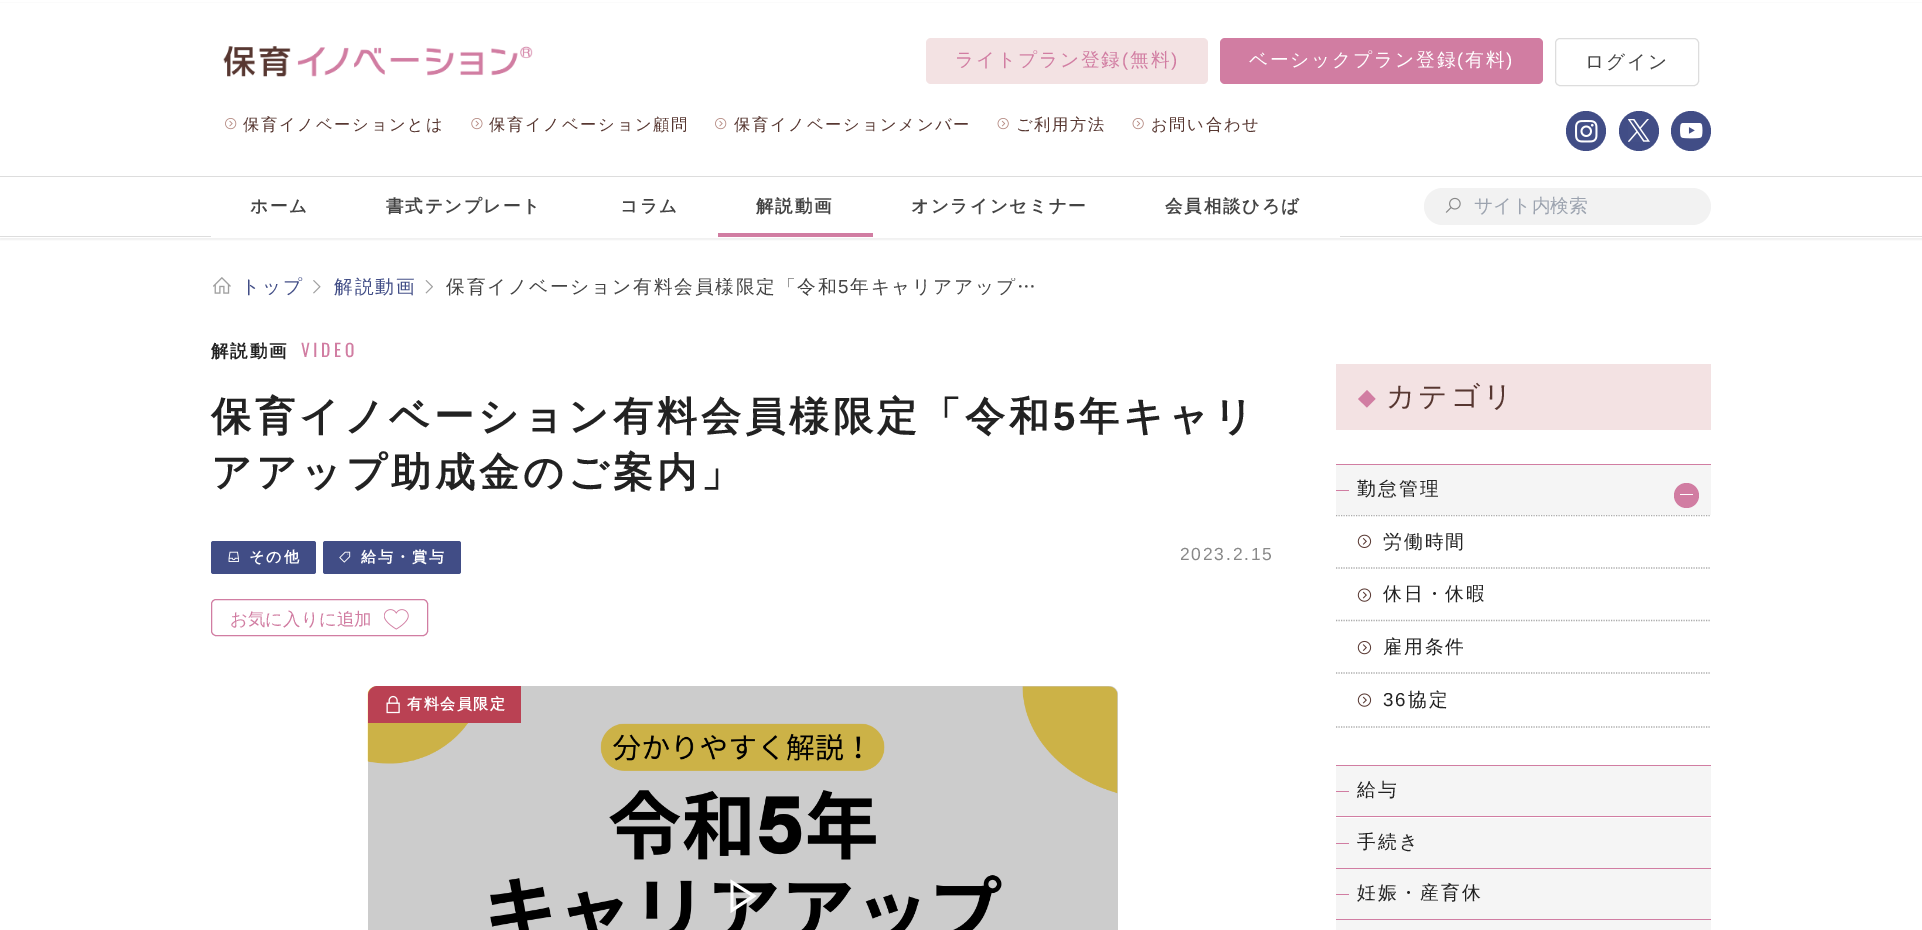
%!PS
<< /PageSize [1922 930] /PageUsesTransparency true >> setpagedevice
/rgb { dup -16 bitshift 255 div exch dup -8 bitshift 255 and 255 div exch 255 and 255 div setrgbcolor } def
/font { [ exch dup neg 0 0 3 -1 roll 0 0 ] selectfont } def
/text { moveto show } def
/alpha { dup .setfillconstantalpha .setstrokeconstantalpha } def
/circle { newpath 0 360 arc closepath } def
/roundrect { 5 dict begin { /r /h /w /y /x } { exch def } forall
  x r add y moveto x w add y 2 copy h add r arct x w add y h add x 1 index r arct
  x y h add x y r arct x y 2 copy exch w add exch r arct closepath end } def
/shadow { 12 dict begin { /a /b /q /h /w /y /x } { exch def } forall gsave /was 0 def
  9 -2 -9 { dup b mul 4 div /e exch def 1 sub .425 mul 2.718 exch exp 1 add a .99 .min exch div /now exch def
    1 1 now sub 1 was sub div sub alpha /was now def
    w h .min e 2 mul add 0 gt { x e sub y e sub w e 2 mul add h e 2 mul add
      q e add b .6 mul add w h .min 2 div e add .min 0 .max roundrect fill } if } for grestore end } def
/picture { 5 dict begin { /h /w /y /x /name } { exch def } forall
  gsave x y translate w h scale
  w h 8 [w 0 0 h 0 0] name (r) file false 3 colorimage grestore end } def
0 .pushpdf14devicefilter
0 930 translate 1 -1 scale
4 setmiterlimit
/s1 { /WenQuanYiZenHei-Medium 18.75 font 16#9CA3AF rgb } def
/s2 { /WenQuanYiZenHei-Medium 17.5 font 16#D17DA2 rgb } def
16#FFFFFF rgb
0 0 1922 930 rectfill
16#000000 rgb
0 3 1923 237 0 0.5 0.05 shadow
16#FFFFFF rgb
0 3 1922 235 rectfill
(pic1.raw) 223 46 310 31 picture
16#F3E2E3 rgb
926 38 282 46 5 roundrect fill
/WenQuanYiZenHei-Medium 18.75 font
16#D17DA2 rgb
955 66 moveto 1.75 0 (ライトプラン登録) ashow
/LiberationSans-Regular 18.75 font
1122 66 moveto 1.75 0 (\() ashow
/WenQuanYiZenHei-Medium 18.75 font
1130 66 moveto 1.75 0 (無料) ashow
/LiberationSans-Regular 18.75 font
1171 66 moveto 1.75 0 (\)) ashow
1220 38 323 46 5 roundrect fill
/WenQuanYiZenHei-Medium 18.75 font
16#FFFFFF rgb
1249 66 moveto 1.75 0 (ベーシックプラン登録) ashow
/LiberationSans-Regular 18.75 font
1457 66 moveto 1.75 0 (\() ashow
/WenQuanYiZenHei-Medium 18.75 font
1465 66 moveto 1.75 0 (有料) ashow
/LiberationSans-Regular 18.75 font
1506 66 moveto 1.75 0 (\)) ashow
16#DDDDDD rgb
1555.5 38.5 143 47 4.5 roundrect stroke
/WenQuanYiZenHei-Medium 18.75 font
16#444444 rgb
1585 68 moveto 1.75 0 (ログイン) ashow
(pic2.raw) 225 118 12 12 picture
/WenQuanYiZenHei-Medium 16.25 font
16#573731 rgb
243 130 moveto 1.75 0 (保育イノベーションとは) ashow
(pic3.raw) 471 118 12 12 picture
489 130 moveto 1.75 0 (保育イノベーション顧問) ashow
(pic2.raw) 715 118 12 12 picture
734 130 moveto 1.75 0 (保育イノベーションメンバー) ashow
(pic4.raw) 997 118 12 12 picture
1016 130 moveto 1.75 0 (ご利用方法) ashow
(pic4.raw) 1132 118 12 12 picture
1151 130 moveto 1.75 0 (お問い合わせ) ashow
16#414D86 rgb
1586 131 20 circle fill
(pic5.raw) 1575 120 23 23 picture
1639 131 20 circle fill
(pic6.raw) 1628 119 22 23 picture
1691 131 20 circle fill
(pic7.raw) 1680 123 23 16 picture
16#DDDDDD rgb
0 176 1922 1 rectfill
0 236 1922 1 rectfill
16#FFFFFF rgb
211 236 507 1 rectfill
/WenQuanYiZenHei-Bold 17.5 font
16#444444 rgb
250 212 moveto 1.75 0 (ホーム) ashow
386 212 moveto 1.75 0 (書式テンプレート) ashow
620 212 moveto 1.75 0 (コラム) ashow
16#D17DA2 rgb
718 233 155 4 rectfill
16#444444 rgb
756 212 moveto 1.75 0 (解説動画) ashow
16#FFFFFF rgb
873 236 467 1 rectfill
16#444444 rgb
911 212 moveto 1.75 0 (オンラインセミナー) ashow
1165 212 moveto 1.75 0 (会員相談ひろば) ashow
16#F2F2F2 rgb
1424 188 287 37 18.5 roundrect fill
(pic8.raw) 1445 197 16 16 picture
s1
(サイト内検索) 1474 212 text
(pic9.raw) 213 277 18 17 picture
16#414D86 rgb
241 293 moveto 1.75 0 (トップ) ashow
(pic10.raw) 313 280 8 14 picture
334 293 moveto 1.75 0 (解説動画) ashow
(pic11.raw) 425 280 8 14 picture
gsave
419 278 625 18 rectclip
16#444444 rgb
446 293 moveto 1.75 0 (保育イノベーション有料会員様限定「令和) ashow
grestore
/LiberationSans-Regular 18.75 font
16#444444 rgb
838 293 moveto 1.75 0 (5) ashow
gsave
419 278 625 18 rectclip
/WenQuanYiZenHei-Medium 18.75 font
850 293 moveto 1.75 0 (年キャリアアップ…) ashow
grestore
/WenQuanYiZenHei-Bold 17.5 font
16#222222 rgb
211 357 moveto 1.75 0 (解説動画) ashow
/Oswald-Regular 17.5 font
16#D17DA2 rgb
301 357 moveto 3.5 0 (VIDEO) ashow
/WenQuanYiZenHei-Bold 40 font
16#222222 rgb
211 430 moveto 4 0 (保育イノベーション有料会員様限定「令和) ashow
/LiberationSans-Bold 40 font
1053 430 moveto 4 0 (5) ashow
/WenQuanYiZenHei-Bold 40 font
1079 430 moveto 4 0 (年キャリ) ashow
211 486 moveto 4 0 (アアップ助成金のご案内」) ashow
16#414D86 rgb
211 541 105 33 2.5 roundrect fill
(pic12.raw) 228 551 11 11 picture
/WenQuanYiZenHei-Bold 15 font
16#FFFFFF rgb
249 562 moveto 2 0 (その他) ashow
16#414D86 rgb
323 541 138 33 2.5 roundrect fill
(pic13.raw) 339 551 12 12 picture
16#FFFFFF rgb
361 562 moveto 2 0 (給与・賞与) ashow
/LiberationSans-Regular 17.5 font
16#888888 rgb
1180 560 moveto 1.75 0 (2023.2.15) ashow
16#D17DA2 rgb
211.5 599.5 216 36 4.5 roundrect stroke
s2
(お気に入りに追加) 230 625 text
(pic14.raw) 384 609 25 21 picture
(pic15.raw) 367 686 751 244 picture
0.2 alpha
16#000000 rgb
368 686 750 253 9 roundrect fill
1 alpha
16#FFFFFF rgb
730.5 879.5 moveto 730.5 913 lineto 756.5 896 lineto closepath 733.5 885 moveto 751 896 lineto 733.5 907.5 lineto closepath fill
gsave
368 686 750 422 9 roundrect clip newpath
16#BA4153 rgb
378 686 moveto 521 686 lineto 521 723 lineto 368 723 lineto 368 696 lineto 368 690.5 372.5 686 378 686 curveto closepath fill
grestore
(pic16.raw) 386 695 14 19 picture
/WenQuanYiZenHei-Bold 15 font
407 709 moveto 1.5 0 (有料会員限定) ashow
16#F3E2E3 rgb
1336 364 375 66 rectfill
16#D17DA2 rgb
1358 399 moveto 1367 390 lineto 1375.5 399 lineto 1367 407.5 lineto closepath fill
/WenQuanYiZenHei-Medium 28.75 font
16#573731 rgb
1386 406 moveto 3 0 (カテゴリ) ashow
16#D17DA2 rgb
1336 464 375 1 rectfill
16#AAAAAA rgb
1.2 setlinewidth
[1.25 1.25] 0 setdash
1336 515.5 moveto 1711 515.5 lineto stroke
16#F5F5F5 rgb
1336 465 375 50 rectfill
16#D17DA2 rgb
1336 490 13 1 rectfill
/WenQuanYiZenHei-Medium 18.75 font
16#222222 rgb
1357 495 moveto 2.25 0 (勤怠管理) ashow
16#D17DA2 rgb
1686.5 495.5 12.5 circle fill
16#FFFFFF rgb
1680 494 13 1 rectfill
(pic17.raw) 1357 534 15 14 picture
16#222222 rgb
1383 548 moveto 2 0 (労働時間) ashow
16#AAAAAA rgb
1336 568 moveto 1711 568 lineto stroke
(pic18.raw) 1357 588 15 14 picture
16#222222 rgb
1383 600 moveto 2 0 (休日・休暇) ashow
16#AAAAAA rgb
1336 620.5 moveto 1711 620.5 lineto stroke
(pic19.raw) 1357 640 15 15 picture
16#222222 rgb
1383 653 moveto 2 0 (雇用条件) ashow
16#AAAAAA rgb
1336 673 moveto 1711 673 lineto stroke
1336 727 moveto 1711 727 lineto stroke
(pic18.raw) 1357 693 15 14 picture
/LiberationSans-Regular 18.75 font
16#222222 rgb
1383 706 moveto 2 0 (36) ashow
/WenQuanYiZenHei-Medium 18.75 font
1408 706 moveto 2 0 (協定) ashow
16#D17DA2 rgb
1336 765 375 1 rectfill
16#F5F5F5 rgb
1336 766 375 50 rectfill
16#D17DA2 rgb
1336 791 13 1 rectfill
16#222222 rgb
1357 796 moveto 2.25 0 (給与) ashow
16#D17DA2 rgb
1336 816 375 1 rectfill
16#F5F5F5 rgb
1336 818 375 50 rectfill
16#D17DA2 rgb
1336 843 13 1 rectfill
16#222222 rgb
1357 848 moveto 2.25 0 (手続き) ashow
16#D17DA2 rgb
1336 868 375 1 rectfill
16#F5F5F5 rgb
1336 869 375 50 rectfill
16#D17DA2 rgb
1336 894 13 1 rectfill
16#222222 rgb
1357 899 moveto 2.25 0 (妊娠・産育休) ashow
16#D17DA2 rgb
1336 919 375 1 rectfill
16#F5F5F5 rgb
1336 920 375 10 rectfill
.poppdf14devicefilter showpage
